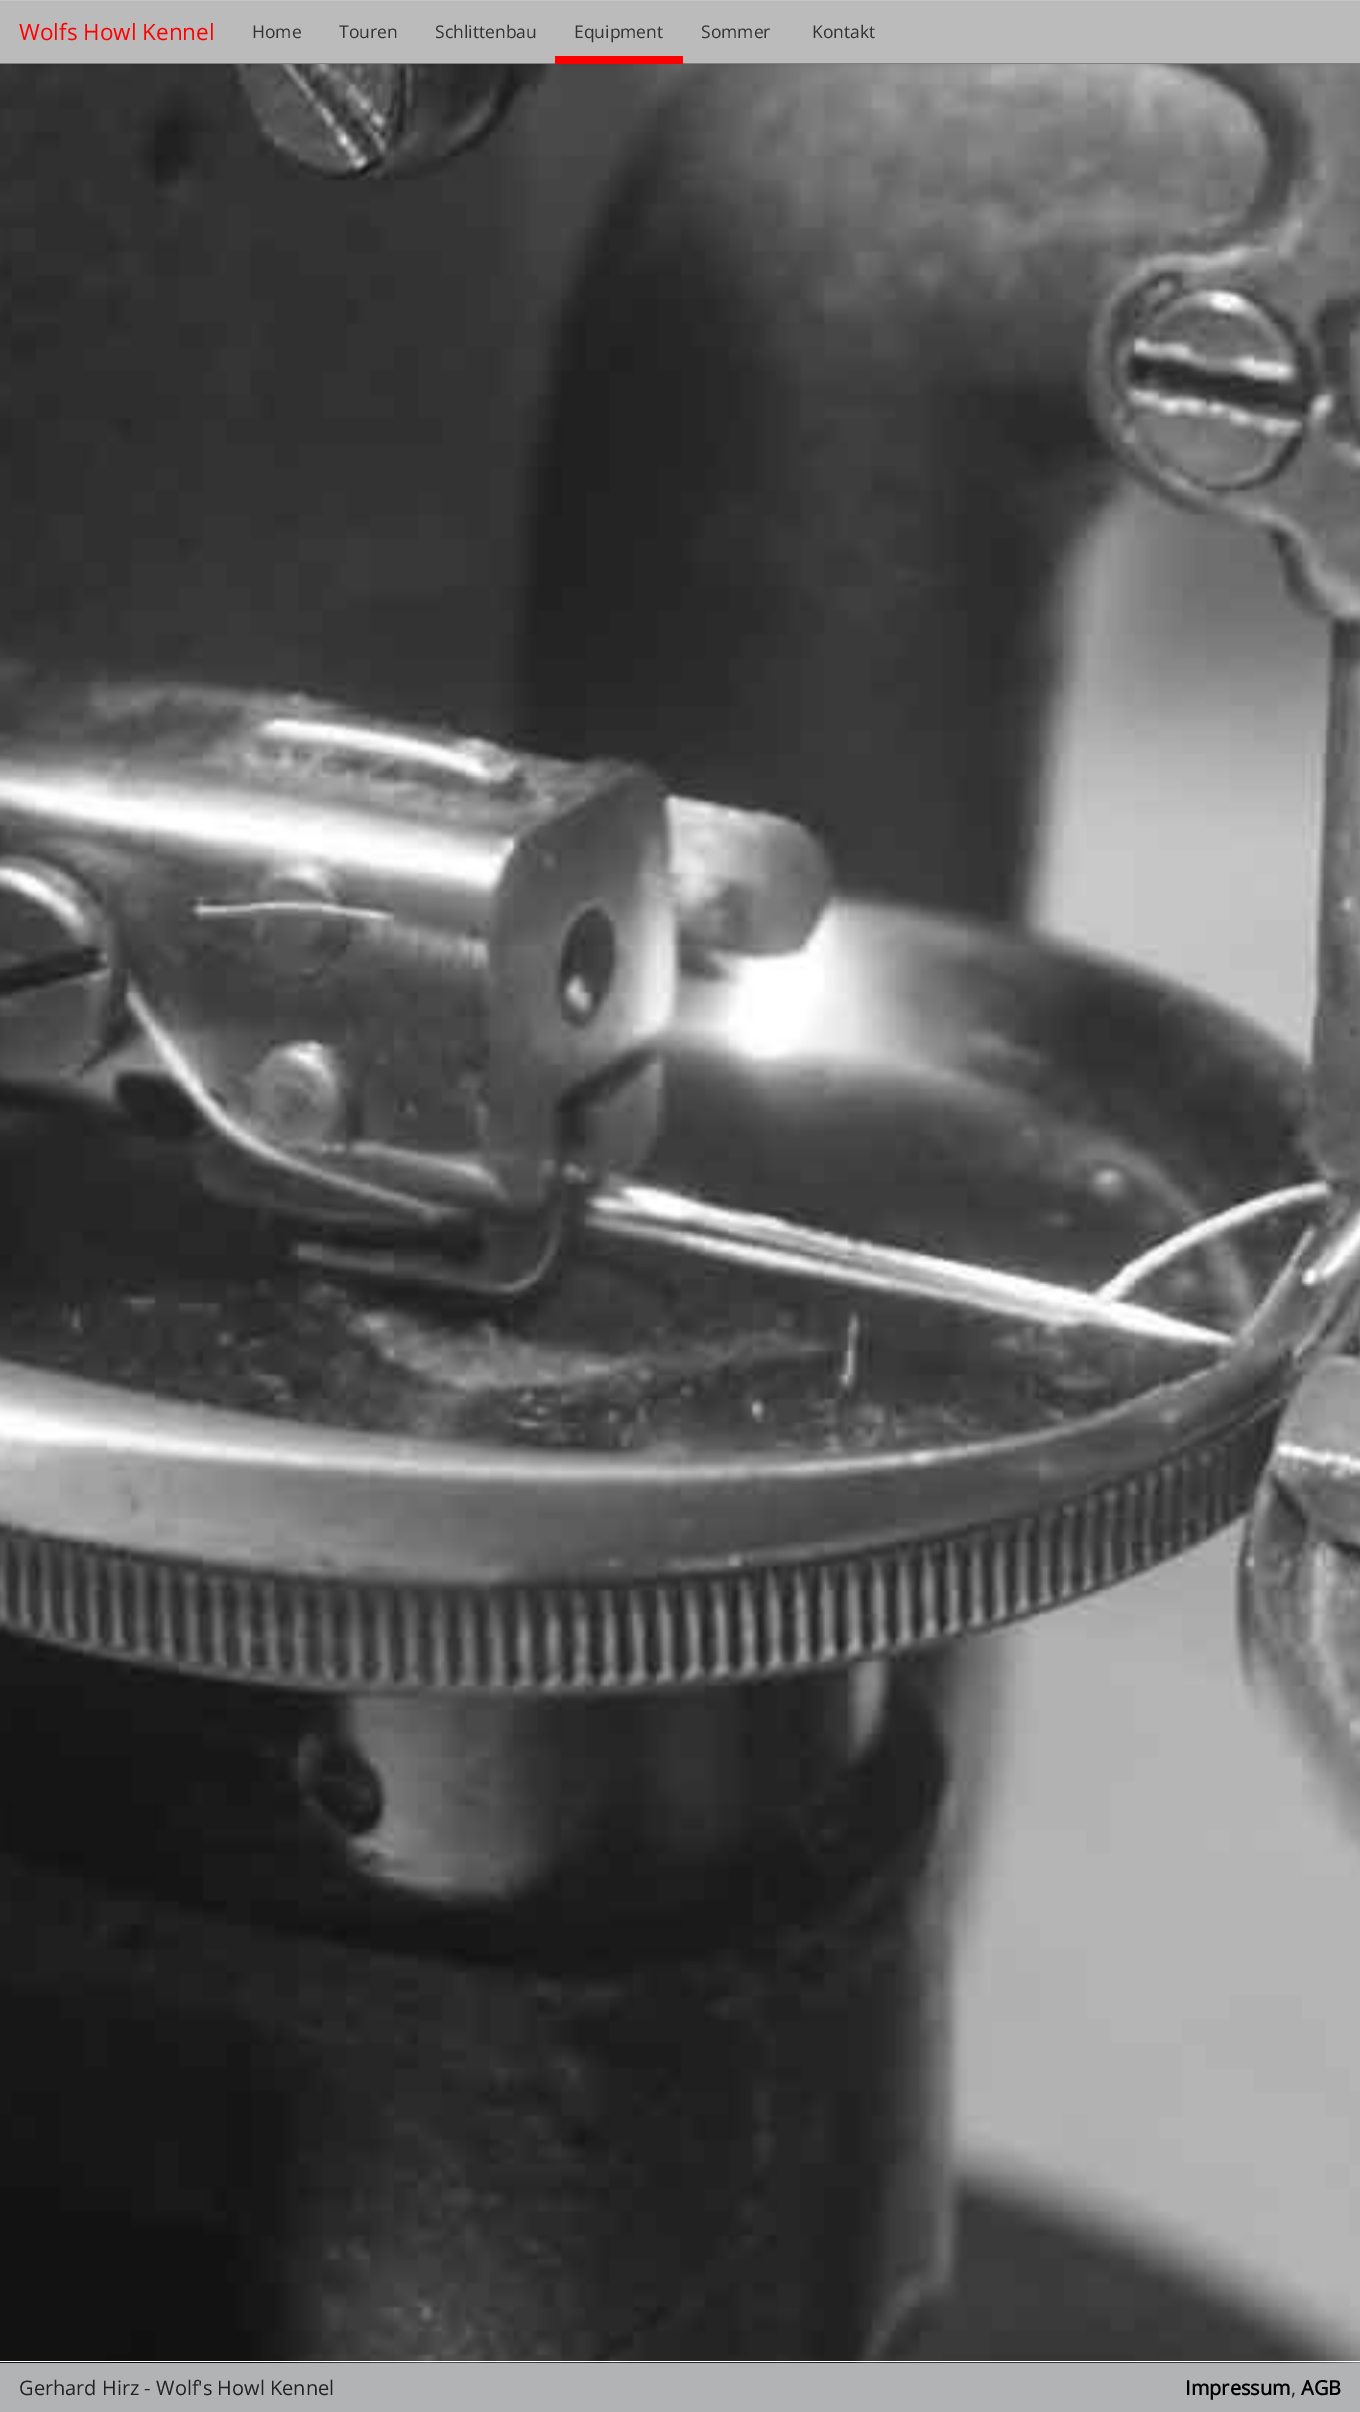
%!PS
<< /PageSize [1360 2412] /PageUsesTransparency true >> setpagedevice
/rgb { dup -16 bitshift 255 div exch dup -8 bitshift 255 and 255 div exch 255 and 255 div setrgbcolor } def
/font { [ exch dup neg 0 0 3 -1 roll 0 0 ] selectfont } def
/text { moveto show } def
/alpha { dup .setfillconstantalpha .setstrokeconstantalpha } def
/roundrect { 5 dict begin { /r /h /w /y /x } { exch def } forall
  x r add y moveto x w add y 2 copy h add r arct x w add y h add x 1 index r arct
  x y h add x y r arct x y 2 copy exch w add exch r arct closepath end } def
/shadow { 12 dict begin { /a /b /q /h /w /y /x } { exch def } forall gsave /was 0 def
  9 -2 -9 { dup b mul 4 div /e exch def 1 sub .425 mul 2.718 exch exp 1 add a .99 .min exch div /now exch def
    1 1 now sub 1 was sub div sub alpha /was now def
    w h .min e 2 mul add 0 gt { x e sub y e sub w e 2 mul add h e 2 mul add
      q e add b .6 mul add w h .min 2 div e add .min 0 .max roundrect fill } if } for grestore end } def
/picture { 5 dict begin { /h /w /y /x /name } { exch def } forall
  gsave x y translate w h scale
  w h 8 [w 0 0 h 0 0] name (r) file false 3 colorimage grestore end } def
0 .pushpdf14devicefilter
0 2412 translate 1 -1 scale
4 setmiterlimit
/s1 { /OpenSans-Regular 22.5 font 16#FF0000 rgb } def
/s2 { /OpenSans-Regular 17.5 font 16#333333 rgb } def
/s3 { /OpenSans-Regular 20 font 16#222222 rgb } def
/s4 { /OpenSans-Bold 20 font 16#000000 rgb } def
16#FFFFFF rgb
0 0 1360 2412 rectfill
(pic1.raw) 0 64 1360 2299 picture
16#000000 rgb
0 1 1360 64 0 3 0.07 shadow
16#BBBBBB rgb
0 1 1360 62 rectfill
16#C5C5C5 rgb
0 0 1360 1 rectfill
16#808080 rgb
0 63 1360 1 rectfill
s1
(Wolfs Howl Kennel) 19 40 text
s2
(Home) 252 38 text
(Touren) 339 38 text
(Schlittenbau) 435 38 text
16#FF0000 rgb
555 56 128 8 rectfill
s2
(Equipment) 574 38 text
(Sommer) 701 38 text
(Kontakt) 812 38 text
16#FFFFFF rgb
0 2361 1360 1 rectfill
16#B1B3B4 rgb
0 2363 1360 49 rectfill
s3
(Gerhard Hirz - Wolf's Howl Kennel) 19 2395 text
s4
(Impressum) 1185 2395 text
s3
(,) 1291 2395 text
s4
(AGB) 1301 2395 text
.poppdf14devicefilter showpage
